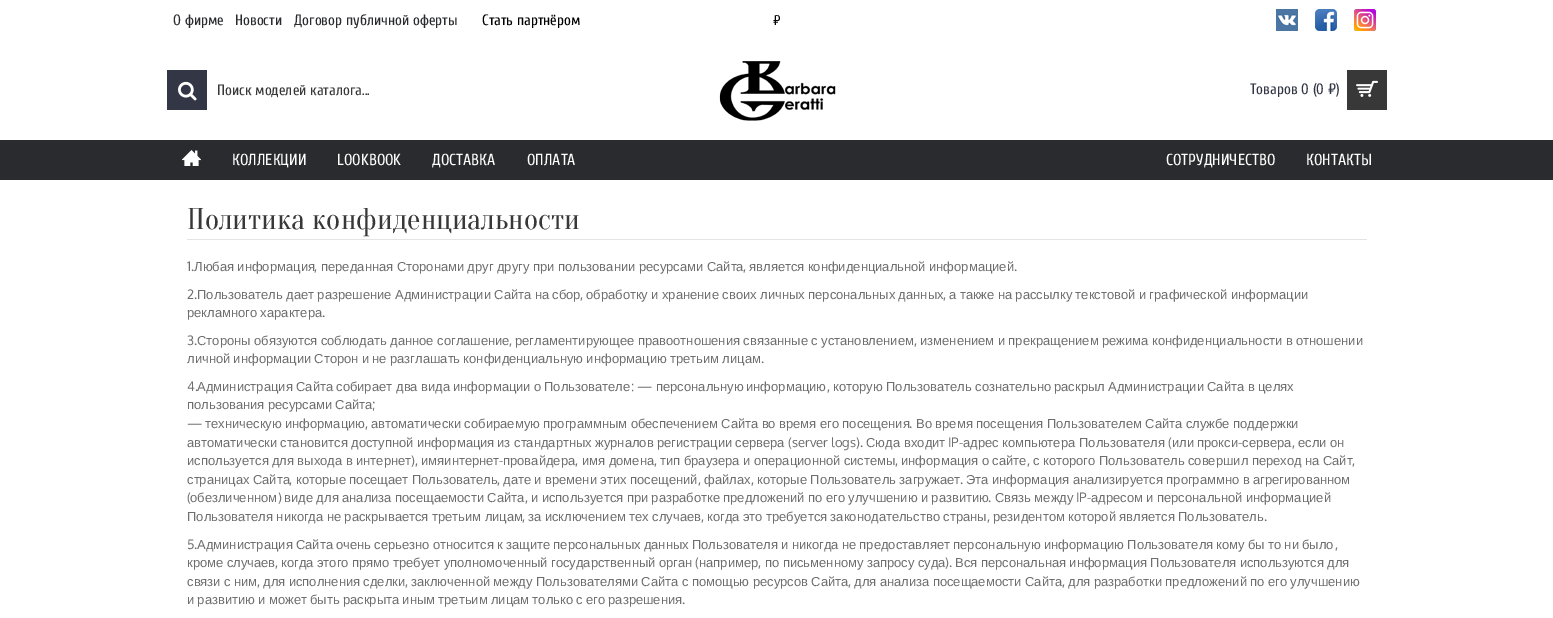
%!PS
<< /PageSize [1553 618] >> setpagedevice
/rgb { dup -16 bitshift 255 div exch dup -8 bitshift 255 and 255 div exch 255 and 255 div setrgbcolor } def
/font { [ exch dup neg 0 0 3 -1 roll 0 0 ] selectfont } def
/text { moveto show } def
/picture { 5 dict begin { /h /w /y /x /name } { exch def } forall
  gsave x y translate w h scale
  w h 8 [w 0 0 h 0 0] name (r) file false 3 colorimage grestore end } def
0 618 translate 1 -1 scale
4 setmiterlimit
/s1 { /Cuprum-Regular 15 font 16#2A2B2E rgb } def
/s2 { /Cuprum-Regular 15 font 16#000000 rgb } def
/s3 { /Cuprum-Regular 14 font 16#000000 rgb } def
/s4 { /Cuprum-Regular 15 font 16#383838 rgb } def
/s5 { /Cuprum-Regular 15 font 16#333745 rgb } def
/s6 { /Cuprum-Regular 16 font 16#FFFFFF rgb } def
/s7 { /Oranienbaum-Regular 30 font 16#383838 rgb } def
/s8 { /Oxygen-Regular 13 font 16#6E6E6E rgb } def
/s9 { /LiberationSans-Regular 13 font 16#6E6E6E rgb } def
16#FFFFFF rgb
0 0 1553 618 rectfill
s1
(О фирме) 173 25 text
(Новости) 235 25 text
(Договор публичной оферты) 294 25 text
s2
(Стать партнёром) 482 25 text
s3
(₽) 773 25 text
(pic1.raw) 1276 9 22 22 picture
(pic2.raw) 1315 9 22 22 picture
(pic3.raw) 1354 9 22 22 picture
16#333745 rgb
167 70 40 40 rectfill
(pic4.raw) 178 81 19 20 picture
s4
(Поиск моделей каталога...) 217 95 text
(pic5.raw) 719 61 117 60 picture
s5
(Товаров 0 \(0 ₽\)) 1250 94 text
16#383838 rgb
1347 70 40 40 rectfill
(pic6.raw) 1356 80 22 17 picture
16#2A2B2E rgb
0 140 1553 40 rectfill
(pic7.raw) 182 150 19 16 picture
s6
(КОЛЛЕКЦИИ) 232 165 text
(LOOKBOOK) 337 165 text
(ДОСТАВКА) 432 165 text
(ОПЛАТА) 527 165 text
(СОТРУДНИЧЕСТВО) 1166 165 text
(КОНТАКТЫ) 1306 165 text
16#E4E4E4 rgb
187 239 1180 1 rectfill
s7
(Политика конфиденциальности) 187 229 text
s8
(1.) 187 271 text
/LiberationSans-Regular 13 font
194 271 moveto -0.25 0 32 (Любая информация) widthshow
s8
(,) 314 271 text
/LiberationSans-Regular 13 font
321 271 moveto -0.25 0 32 (переданная Сторонами друг другу при пользовании ресурсами Сайта) widthshow
s8
(,) 743 271 text
/LiberationSans-Regular 13 font
749 271 moveto -0.25 0 32 (является конфиденциальной информацией) widthshow
s8
(.) 1014 271 text
(2.) 187 299 text
/LiberationSans-Regular 13 font
197 299 moveto -0.25 0 32 (Пользователь дает разрешение Администрации Сайта на сбор) widthshow
s8
(,) 580 299 text
/LiberationSans-Regular 13 font
586 299 moveto -0.25 0 32 (обработку и хранение своих личных персональных данных) widthshow
s8
(,) 943 299 text
/LiberationSans-Regular 13 font
949 299 moveto -0.25 0 32 (а также на рассылку текстовой и графической информации) widthshow
187 317 moveto -0.4 0 32 (рекламного характера) widthshow
s8
(.) 322 317 text
(3.) 187 345 text
/LiberationSans-Regular 13 font
197 345 moveto -0.25 0 32 (Стороны обязуются соблюдать данное соглашение) widthshow
s8
(,) 509 345 text
/LiberationSans-Regular 13 font
515 345 moveto -0.25 0 32 (регламентирующее правоотношения связанные с установлением) widthshow
s8
(,) 914 345 text
/LiberationSans-Regular 13 font
920 345 moveto -0.25 0 32 (изменением и прекращением режима конфиденциальности в отношении) widthshow
187 363 moveto -0.4 0 32 (личной информации Сторон и не разглашать конфиденциальную информацию третьим лицам) widthshow
s8
(.) 761 363 text
(4.) 187 391 text
s9
(Администрация) 197 391 text
(Сайта) 296 391 text
(собирает) 336 391 text
(два) 396 391 text
(вида) 421 391 text
(информации) 453 391 text
(о) 534 391 text
(Пользователе) 544 391 text
s8
(: —) 631 391 text
s9
(персональную) 656 391 text
(информацию) 746 391 text
s8
(,) 827 391 text
s9
(которую) 833 391 text
(Пользователь) 886 391 text
(сознательно) 975 391 text
(раскрыл) 1054 391 text
(Администрации) 1108 391 text
(Сайта) 1207 391 text
(в) 1248 391 text
(целях) 1258 391 text
187 409 moveto -0.4 0 32 (пользования ресурсами Сайта) widthshow
s8
(;) 372 409 text
(—) 187 428 text
/LiberationSans-Regular 13 font
205 428 moveto -0.25 0 32 (техническую информацию) widthshow
371 428 moveto -0.25 0 32 (автоматически собираемую программным обеспечением Сайта во время его посещения) widthshow
916 428 moveto -0.25 0 32 (Во время посещения Пользователем Сайта службе поддержки) widthshow
s8
(,) 365 428 text
(.) 909 428 text
s9
(автоматически) 187 447 text
(становится) 280 447 text
(доступной) 351 447 text
(информация) 417 447 text
(из) 497 447 text
(стандартных) 514 447 text
(журналов) 595 447 text
(регистрации) 657 447 text
(сервера) 735 447 text
s8
(\(server logs\).) 788 447 text
s9
(Сюда) 866 447 text
(входит) 904 447 text
s8
(IP-) 948 447 text
s9
(адрес) 963 447 text
(компьютера) 1002 447 text
(Пользователя) 1079 447 text
s8
(\() 1168 447 text
s9
(или) 1172 447 text
(прокси) 1197 447 text
s8
(-) 1238 447 text
s9
(сервера) 1242 447 text
(если) 1298 447 text
(он) 1330 447 text
s8
(,) 1292 447 text
/LiberationSans-Regular 13 font
187 465 moveto -0.25 0 32 (используется для выхода в интернет) widthshow
s8
(\),) 411 465 text
s9
(имяинтернет) 421 465 text
s8
(-) 499 465 text
s9
(провайдера) 503 465 text
582 465 moveto -0.25 0 32 (имя домена) widthshow
660 465 moveto -0.25 0 32 (тип браузера и операционной системы) widthshow
901 465 moveto -0.25 0 32 (информация о сайте) widthshow
1033 465 moveto -0.25 0 32 (с которого Пользователь совершил переход на Сайт) widthshow
s8
(,) 575 465 text
(,) 654 465 text
(,) 895 465 text
(,) 1027 465 text
(,) 1352 465 text
/LiberationSans-Regular 13 font
187 484 moveto -0.25 0 32 (страницах Сайта) widthshow
s8
(,) 289 484 text
/LiberationSans-Regular 13 font
296 484 moveto -0.25 0 32 (которые посещает Пользователь) widthshow
s8
(,) 497 484 text
/LiberationSans-Regular 13 font
503 484 moveto -0.25 0 32 (дате и времени этих посещений) widthshow
s8
(,) 698 484 text
s9
(файлах) 704 484 text
s8
(,) 751 484 text
/LiberationSans-Regular 13 font
757 484 moveto -0.25 0 32 (которые Пользователь загружает) widthshow
s8
(.) 960 484 text
/LiberationSans-Regular 13 font
966 484 moveto -0.25 0 32 (Эта информация анализируется программно в агрегированном) widthshow
s8
(\() 187 502 text
s9
(обезличенном) 190 502 text
s8
(\)) 278 502 text
/LiberationSans-Regular 13 font
284 502 moveto -0.25 0 32 (виде для анализа посещаемости Сайта) widthshow
s8
(,) 525 502 text
/LiberationSans-Regular 13 font
531 502 moveto -0.25 0 32 (и используется при разработке предложений по его улучшению и развитию) widthshow
s8
(.) 988 502 text
/LiberationSans-Regular 13 font
995 502 moveto -0.25 0 32 (Связь между) widthshow
s8
(IP-) 1076 502 text
/LiberationSans-Regular 13 font
1091 502 moveto -0.25 0 32 (адресом и персональной информацией) widthshow
187 521 moveto -0.25 0 32 (Пользователя никогда не раскрывается третьим лицам) widthshow
s8
(,) 522 521 text
/LiberationSans-Regular 13 font
528 521 moveto -0.25 0 32 (за исключением тех случаев) widthshow
s8
(,) 701 521 text
/LiberationSans-Regular 13 font
707 521 moveto -0.25 0 32 (когда это требуется законодательство страны) widthshow
s8
(,) 987 521 text
/LiberationSans-Regular 13 font
993 521 moveto -0.25 0 32 (резидентом которой является Пользователь) widthshow
s8
(.) 1264 521 text
(5.) 187 549 text
/LiberationSans-Regular 13 font
197 549 moveto -0.4 0 32 (Администрация Сайта очень серьезно относится к защите персональных данных Пользователя и никогда не предоставляет персональную информацию Пользователя кому бы то ни было) widthshow
s8
(,) 1335 549 text
/LiberationSans-Regular 13 font
187 567 moveto -0.25 0 32 (кроме случаев) widthshow
s8
(,) 275 567 text
/LiberationSans-Regular 13 font
281 567 moveto -0.25 0 32 (когда этого прямо требует уполномоченный государственный орган) widthshow
s8
(\() 695 567 text
s9
(например) 699 567 text
s8
(,) 758 567 text
/LiberationSans-Regular 13 font
765 567 moveto -0.25 0 32 (по письменному запросу суда) widthshow
s8
(\).) 945 567 text
/LiberationSans-Regular 13 font
955 567 moveto -0.25 0 32 (Вся персональная информация Пользователя используются для) widthshow
187 586 moveto -0.25 0 32 (связи с ним) widthshow
s8
(,) 257 586 text
/LiberationSans-Regular 13 font
263 586 moveto -0.25 0 32 (для исполнения сделки) widthshow
s8
(,) 405 586 text
/LiberationSans-Regular 13 font
411 586 moveto -0.25 0 32 (заключенной между Пользователями Сайта с помощью ресурсов Сайта) widthshow
s8
(,) 848 586 text
/LiberationSans-Regular 13 font
854 586 moveto -0.25 0 32 (для анализа посещаемости Сайта) widthshow
s8
(,) 1062 586 text
/LiberationSans-Regular 13 font
1068 586 moveto -0.25 0 32 (для разработки предложений по его улучшению) widthshow
187 604 moveto -0.4 0 32 (и развитию и может быть раскрыта иным третьим лицам только с его разрешения) widthshow
s8
(.) 682 604 text
showpage
